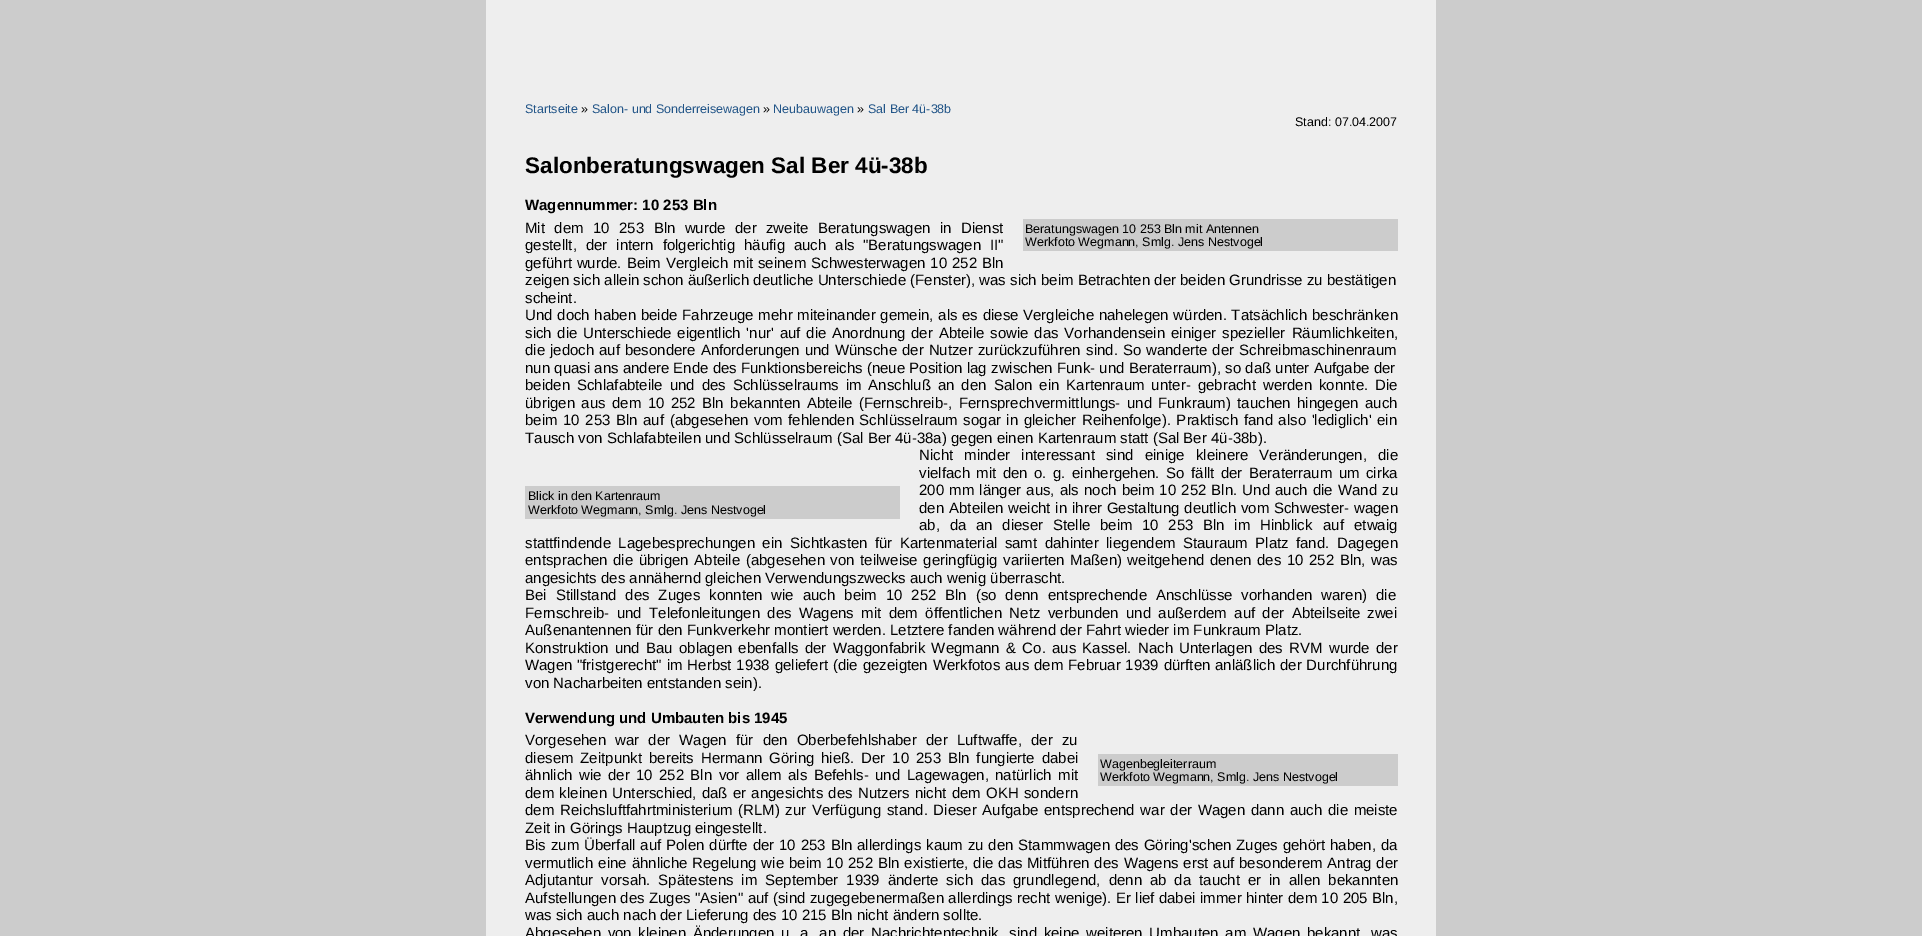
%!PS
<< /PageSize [1922 936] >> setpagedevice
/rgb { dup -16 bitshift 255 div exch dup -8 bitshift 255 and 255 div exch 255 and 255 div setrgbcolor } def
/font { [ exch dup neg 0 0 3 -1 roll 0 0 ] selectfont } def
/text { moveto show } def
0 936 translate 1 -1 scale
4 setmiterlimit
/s1 { /LiberationSans-Regular 12.5 font 16#225588 rgb } def
/s2 { /LiberationSans-Regular 12.5 font 16#000000 rgb } def
/s3 { /LiberationSans-Bold 22.5 font 16#000000 rgb } def
/s4 { /LiberationSans-Bold 15 font 16#000000 rgb } def
/s5 { /LiberationSans-Regular 15 font 16#000000 rgb } def
16#CCCCCC rgb
0 0 1922 936 rectfill
16#EEEEEE rgb
486 0 950 936 rectfill
s1
(Startseite) 525 113 text
s2
(») 581 113 text
s1
(Salon- und Sonderreisewagen) 592 113 text
s2
(») 763 113 text
s1
(Neubauwagen) 773 113 text
s2
(») 857 113 text
s1
(Sal Ber 4ü-38b) 868 113 text
s2
(Stand: 07.04.2007) 1295 126 text
s3
(Salonberatungswagen Sal Ber 4ü-38b) 525 173 text
s4
(Wagennummer: 10 253 Bln) 525 210 text
/LiberationSans-Regular 15 font
525 233 moveto 5.25 0 32 (Mit dem 10 253 Bln wurde der zweite Beratungswagen in Dienst) widthshow
16#CCCCCC rgb
1023 219 375 32 rectfill
s2
(Beratungswagen 10 253 Bln mit Antennen) 1025 233 text
(Werkfoto Wegmann, Smlg. Jens Nestvogel) 1025 246 text
/LiberationSans-Regular 15 font
525 250 moveto 4.75 0 32 (gestellt, der intern folgerichtig häufig auch als) widthshow
("Beratungswagen) 863 250 text
(II") 990 250 text
525 268 moveto 0.75 0 32 (geführt wurde. Beim Vergleich mit seinem Schwesterwagen 10 252 Bln) widthshow
(zeigen sich allein schon äußerlich deutliche Unterschiede \(Fenster\), was sich beim Betrachten der beiden Grundrisse zu bestätigen) 525 285 text
(scheint.) 525 303 text
525 320 moveto 0.5 0 32 (Und doch haben beide Fahrzeuge mehr miteinander gemein, als es diese Vergleiche nahelegen würden. Tatsächlich) widthshow
(beschränken) 1312 320 text
525 338 moveto 1.6 0 32 (sich die Unterschiede eigentlich 'nur' auf die Anordnung der Abteile sowie das Vorhandensein einiger) widthshow
1222 338 moveto 2 0 32 (spezieller Räumlichkeiten,) widthshow
525 355 moveto 0.75 0 32 (die jedoch auf besondere Anforderungen und Wünsche der Nutzer zurückzuführen) widthshow
1086 355 moveto 0.75 0 32 (sind. So wanderte der Schreibmaschinenraum) widthshow
(nun quasi ans andere Ende des Funktionsbereichs \(neue Position lag zwischen Funk- und Beraterraum\), so daß unter Aufgabe der) 525 373 text
525 390 moveto 2.75 0 32 (beiden Schlafabteile und des Schlüsselraums im Anschluß an den) widthshow
994 390 moveto 2.75 0 32 (Salon ein Kartenraum unter- gebracht werden konnte. Die) widthshow
525 408 moveto 2.25 0 32 (übrigen aus dem 10 252 Bln bekannten Abteile) widthshow
859 408 moveto 2.25 0 32 (\(Fernschreib-, Fernsprechvermittlungs- und Funkraum\) tauchen hingegen auch) widthshow
525 425 moveto 1.4 0 32 (beim 10 253 Bln auf \(abgesehen vom) widthshow
788 425 moveto 1.4 0 32 (fehlenden Schlüsselraum sogar in gleicher Reihenfolge\). Praktisch fand also 'lediglich' ein) widthshow
(Tausch von Schlafabteilen und Schlüsselraum \(Sal Ber 4ü-38a\) gegen einen Kartenraum statt \(Sal Ber 4ü-38b\).) 525 443 text
919 460 moveto 7 0 32 (Nicht minder interessant sind einige kleinere Veränderungen, die) widthshow
919 478 moveto 2.25 0 32 (vielfach mit den o. g. einhergehen. So) widthshow
1191 478 moveto 2.25 0 32 (fällt der Beraterraum um cirka) widthshow
16#CCCCCC rgb
525 486 375 33 rectfill
s2
(Blick in den Kartenraum) 528 500 text
(Werkfoto Wegmann, Smlg. Jens Nestvogel) 528 514 text
/LiberationSans-Regular 15 font
919 495 moveto 1 0 32 (200 mm länger aus, als noch beim 10 252 Bln. Und auch die Wand zu) widthshow
(den) 919 513 text
949 513 moveto 0.7 0 32 (Abteilen weicht in ihrer Gestaltung deutlich vom Schwester- wagen) widthshow
919 530 moveto 5.5 0 32 (ab, da an dieser Stelle beim 10 253 Bln im Hinblick) widthshow
1323 530 moveto 6 0 32 (auf etwaig) widthshow
525 548 moveto 3.25 0 32 (stattfindende Lagebesprechungen ein Sichtkasten für Kartenmaterial samt dahinter liegendem Stauraum Platz fand.) widthshow
(Dagegen) 1337 548 text
525 565 moveto 1.4 0 32 (entsprachen die übrigen Abteile \(abgesehen von teilweise geringfügig variierten Maßen\) weitgehend denen) widthshow
1257 565 moveto 1.4 0 32 (des 10 252 Bln, was) widthshow
(angesichts des annähernd gleichen Verwendungszwecks auch wenig überrascht.) 525 583 text
525 600 moveto 4.75 0 32 (Bei Stillstand des Zuges konnten wie auch beim 10 252 Bln \(so denn entsprechende Anschlüsse vorhanden waren\) die) widthshow
525 618 moveto 3.25 0 32 (Fernschreib- und Telefonleitungen des Wagens mit dem öffentlichen Netz verbunden und außerdem auf der Abteilseite) widthshow
(zwei) 1367 618 text
(Außenantennen für den Funkverkehr montiert werden. Letztere fanden während der Fahrt wieder im Funkraum Platz.) 525 635 text
525 653 moveto 2.1 0 32 (Konstruktion und Bau oblagen ebenfalls der Waggonfabrik Wegmann & Co. aus Kassel. Nach Unterlagen des RVM wurde der) widthshow
(Wagen) 525 670 text
577 670 moveto 0.7 0 32 ("fristgerecht" im Herbst 1938 geliefert \(die gezeigten Werkfotos aus dem Februar 1939 dürften) widthshow
1215 670 moveto 0.7 0 32 (anläßlich der Durchführung) widthshow
(von Nacharbeiten entstanden sein\).) 525 688 text
s4
(Verwendung und Umbauten bis 1945) 525 723 text
/LiberationSans-Regular 15 font
525 745 moveto 5 0 32 (Vorgesehen war der Wagen für den Oberbefehlshaber der Luftwaffe, der zu) widthshow
525 763 moveto 2.75 0 32 (diesem Zeitpunkt bereits Hermann Göring) widthshow
821 763 moveto 2.75 0 32 (hieß. Der 10 253 Bln fungierte dabei) widthshow
16#CCCCCC rgb
1098 754 300 32 rectfill
s2
(Wagenbegleiterraum) 1100 768 text
(Werkfoto Wegmann, Smlg. Jens Nestvogel) 1100 781 text
/LiberationSans-Regular 15 font
525 780 moveto 2.25 0 32 (ähnlich wie der 10 252 Bln vor allem als Befehls- und) widthshow
907 780 moveto 2.25 0 32 (Lagewagen, natürlich mit) widthshow
525 798 moveto 1.1 0 32 (dem kleinen Unterschied, daß er angesichts des Nutzers nicht dem OKH sondern) widthshow
(dem) 525 815 text
560 815 moveto 1.5 0 32 (Reichsluftfahrtministerium \(RLM\) zur Verfügung stand. Dieser Aufgabe entsprechend war der Wagen dann auch die meiste) widthshow
(Zeit in Görings Hauptzug eingestellt.) 525 833 text
525 850 moveto 0.7 0 32 (Bis zum Überfall auf Polen dürfte der 10 253 Bln allerdings kaum zu den Stammwagen des Göring'schen) widthshow
1236 850 moveto 0.7 0 32 (Zuges gehört haben, da) widthshow
525 868 moveto 0.75 0 32 (vermutlich eine ähnliche Regelung wie beim 10 252 Bln existierte, die das) widthshow
1027 868 moveto 0.75 0 32 (Mitführen des Wagens erst auf besonderem Antrag der) widthshow
525 885 moveto 3.75 0 32 (Adjutantur vorsah. Spätestens im September 1939 änderte sich) widthshow
981 885 moveto 3.75 0 32 (das grundlegend, denn ab da taucht er in allen bekannten) widthshow
525 903 moveto 0.25 0 32 (Aufstellungen des Zuges "Asien" auf \(sind zugegebenermaßen allerdings recht wenige\). Er lief dabei immer hinter dem 10 205 Bln,) widthshow
(was sich auch nach der Lieferung des 10 215 Bln nicht ändern sollte.) 525 920 text
525 938 moveto 2.5 0 32 (Abgesehen von kleinen Änderungen u. a. an der Nachrichtentechnik, sind keine weiteren Umbauten am Wagen bekannt, was) widthshow
showpage
